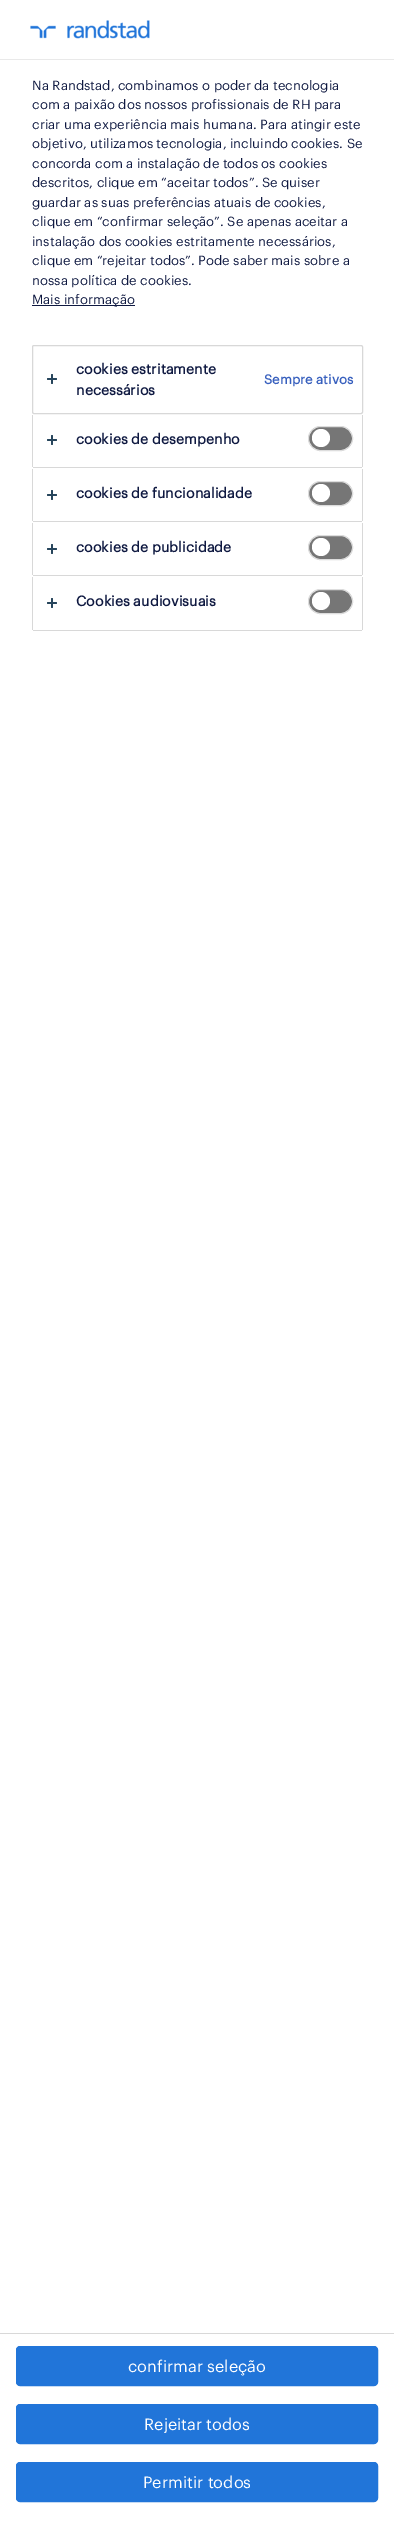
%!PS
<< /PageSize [394 2544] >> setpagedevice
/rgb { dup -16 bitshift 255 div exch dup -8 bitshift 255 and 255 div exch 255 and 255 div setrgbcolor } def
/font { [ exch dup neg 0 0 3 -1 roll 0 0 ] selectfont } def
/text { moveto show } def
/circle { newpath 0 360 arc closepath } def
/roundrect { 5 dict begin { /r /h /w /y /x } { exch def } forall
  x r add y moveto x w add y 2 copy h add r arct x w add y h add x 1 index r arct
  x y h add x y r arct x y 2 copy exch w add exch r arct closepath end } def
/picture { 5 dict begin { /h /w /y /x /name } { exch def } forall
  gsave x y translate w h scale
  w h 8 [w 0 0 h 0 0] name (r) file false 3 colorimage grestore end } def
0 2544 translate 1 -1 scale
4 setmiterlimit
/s1 { /Graphik-Regular 13 font 16#0F1941 rgb } def
/s2 { /Graphik-Bold 14 font 16#0F1941 rgb } def
/s3 { /Graphik-Bold 13 font 16#3860BE rgb } def
/s4 { /Graphik-Regular 16 font 16#FFFFFF rgb } def
16#FFFFFF rgb
0 0 394 2544 rectfill
16#E9E9E9 rgb
0 59 394 1 rectfill
(pic1.raw) 30 20 120 19 picture
s1
(Na Randstad, combinamos o poder da tecnologia) 32 90 text
(com a paixão dos nossos profissionais de RH para) 32 109 text
(criar uma experiência mais humana. Para atingir este) 32 129 text
(objetivo, utilizamos tecnologia, incluindo cookies. Se) 32 148 text
(concorda com a instalação de todos os cookies) 32 168 text
(descritos, clique em “aceitar todos”. Se quiser) 32 187 text
(guardar as suas preferências atuais de cookies,) 32 207 text
(clique em “confirmar seleção”. Se apenas aceitar a) 32 226 text
(instalação dos cookies estritamente necessários,) 32 246 text
(clique em “rejeitar todos”. Pode saber mais sobre a) 32 265 text
(nossa política de cookies.) 32 285 text
32 305 103 1 rectfill
(Mais informação) 32 304 text
16#D8D8D8 rgb
32.5 345.5 330 68 1.5 roundrect stroke
16#27455C rgb
51 374 2 10 1 roundrect fill
47 378 10 2 1 roundrect fill
s2
(cookies estritamente) 76 374 text
(necessários) 76 395 text
s3
(Sempre ativos) 264 384 text
16#D8D8D8 rgb
362 415 1 52 rectfill
33 467 329 1 rectfill
32 415 1 52 rectfill
16#27455C rgb
51 435 2 10 1 roundrect fill
47 439 10 2 1 roundrect fill
s2
(cookies de desempenho) 76 444 text
16#767676 rgb
308.5 426.5 44 24 12 roundrect gsave fill grestore
16#DDDDDD rgb
stroke
16#FFFFFF rgb
321 438 9 circle fill
16#D8D8D8 rgb
362 469 1 52 rectfill
33 521 329 1 rectfill
32 469 1 52 rectfill
16#27455C rgb
51 490 2 10 1 roundrect fill
47 494 10 2 1 roundrect fill
s2
(cookies de funcionalidade) 76 498 text
16#767676 rgb
308.5 481.5 44 24 12 roundrect gsave fill grestore
16#DDDDDD rgb
stroke
16#FFFFFF rgb
321 493 9 circle fill
16#D8D8D8 rgb
362 523 1 52 rectfill
33 575 329 1 rectfill
32 523 1 52 rectfill
16#27455C rgb
51 544 2 10 1 roundrect fill
47 548 10 2 1 roundrect fill
s2
(cookies de publicidade) 76 552 text
16#767676 rgb
308.5 535.5 44 24 12 roundrect gsave fill grestore
16#DDDDDD rgb
stroke
16#FFFFFF rgb
321 547 9 circle fill
16#D8D8D8 rgb
362 577 1 53 rectfill
33 630 329 1 rectfill
32 577 1 53 rectfill
16#27455C rgb
51 598 2 10 1 roundrect fill
47 602 10 2 1 roundrect fill
s2
(Cookies audiovisuais) 76 606 text
16#767676 rgb
308.5 589.5 44 24 12 roundrect gsave fill grestore
16#DDDDDD rgb
stroke
16#FFFFFF rgb
321 601 9 circle fill
16#D8D8D8 rgb
0 2333 394 1 rectfill
16#2175D9 rgb
16.5 2346.5 361 39 3.5 roundrect gsave fill grestore
stroke
s4
(confirmar seleção) 128 2372 text
16#2175D9 rgb
16.5 2404.5 361 39 3.5 roundrect gsave fill grestore
stroke
s4
(Rejeitar todos) 144 2430 text
16#2175D9 rgb
16.5 2462.5 361 39 3.5 roundrect gsave fill grestore
stroke
s4
(Permitir todos) 143 2488 text
showpage
